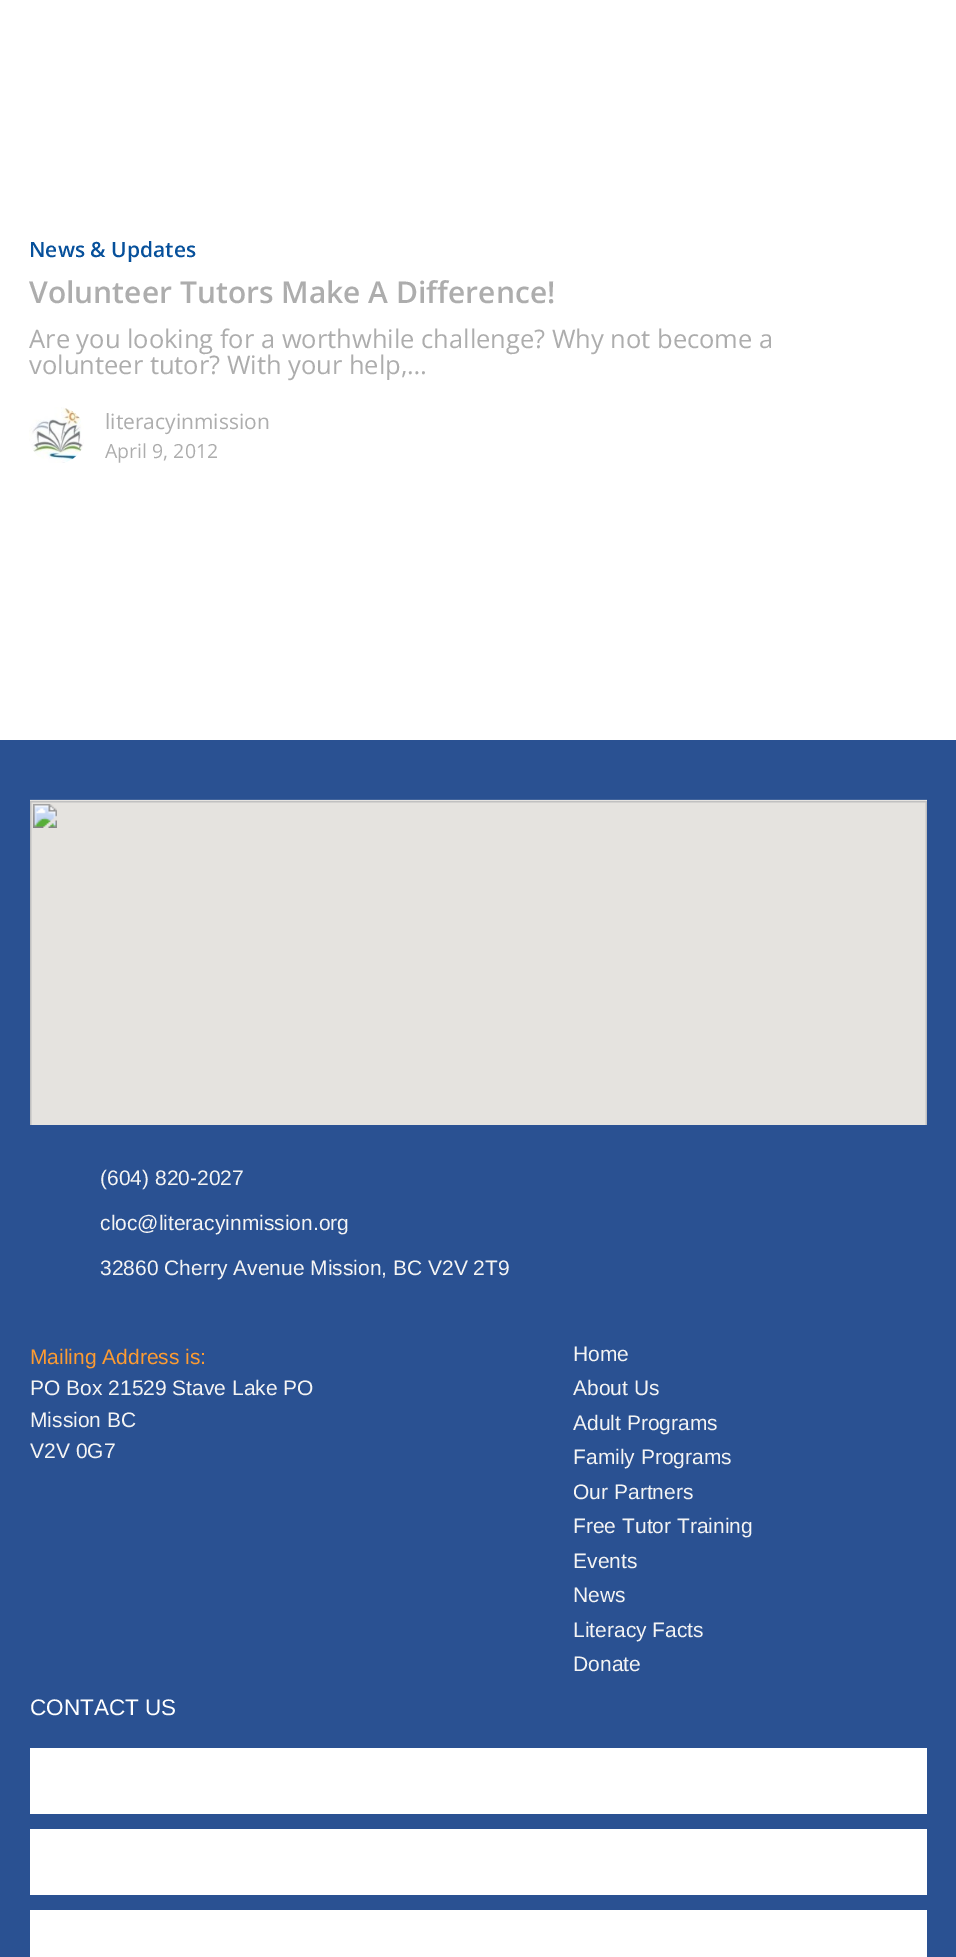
%!PS
<< /PageSize [956 1957] >> setpagedevice
/rgb { dup -16 bitshift 255 div exch dup -8 bitshift 255 and 255 div exch 255 and 255 div setrgbcolor } def
/font { [ exch dup neg 0 0 3 -1 roll 0 0 ] selectfont } def
/text { moveto show } def
/picture { 5 dict begin { /h /w /y /x /name } { exch def } forall
  gsave x y translate w h scale
  w h 8 [w 0 0 h 0 0] name (r) file false 3 colorimage grestore end } def
0 1957 translate 1 -1 scale
4 setmiterlimit
/s1 { /OpenSans-SemiBold 21 font 16#06509B rgb } def
/s2 { /OpenSans-SemiBold 30 font 16#ADADAD rgb } def
/s3 { /OpenSans-Regular 25.5 font 16#ADADAD rgb } def
/s4 { /OpenSans-Regular 21 font 16#ADADAD rgb } def
/s5 { /OpenSans-Regular 19.5 font 16#ADADAD rgb } def
/s6 { /LiberationSans-Regular 21 font 16#F4F4F4 rgb } def
/s7 { /LiberationSans-Regular 21 font 16#FC9B32 rgb } def
/s8 { /LiberationSans-Regular 22.5 font 16#FFFFFF rgb } def
16#FFFFFF rgb
0 0 956 1957 rectfill
s1
(News & Updates) 29 257 text
s2
(Volunteer Tutors Make A Difference!) 29 303 text
s3
(Are you looking for a worthwhile challenge? Why not become a) 29 348 text
(volunteer tutor? With your help,…) 29 374 text
(pic1.raw) 29 407 55 56 picture
s4
(literacyinmission) 105 429 text
s5
(April 9, 2012) 105 458 text
16#2A5192 rgb
0 740 956 1217 rectfill
(pic2.raw) 30 799 897 326 picture
s6
(\(604\) 820-2027) 100 1185 text
(cloc@literacyinmission.org) 100 1230 text
(32860 Cherry Avenue Mission, BC V2V 2T9) 100 1275 text
s7
(Mailing Address is:) 30 1364 text
s6
(PO Box 21529 Stave Lake PO) 30 1395 text
(Mission BC) 30 1427 text
(V2V 0G7) 30 1458 text
(Home) 573 1361 text
(About Us) 573 1395 text
(Adult Programs) 573 1430 text
(Family Programs) 573 1464 text
(Our Partners) 573 1499 text
(Free Tutor Training) 573 1533 text
(Events) 573 1568 text
(News) 573 1602 text
(Literacy Facts) 573 1637 text
(Donate) 573 1671 text
s8
(CONTACT US) 30 1715 text
30 1748 897 66 rectfill
30 1829 897 66 rectfill
30 1910 897 47 rectfill
showpage
